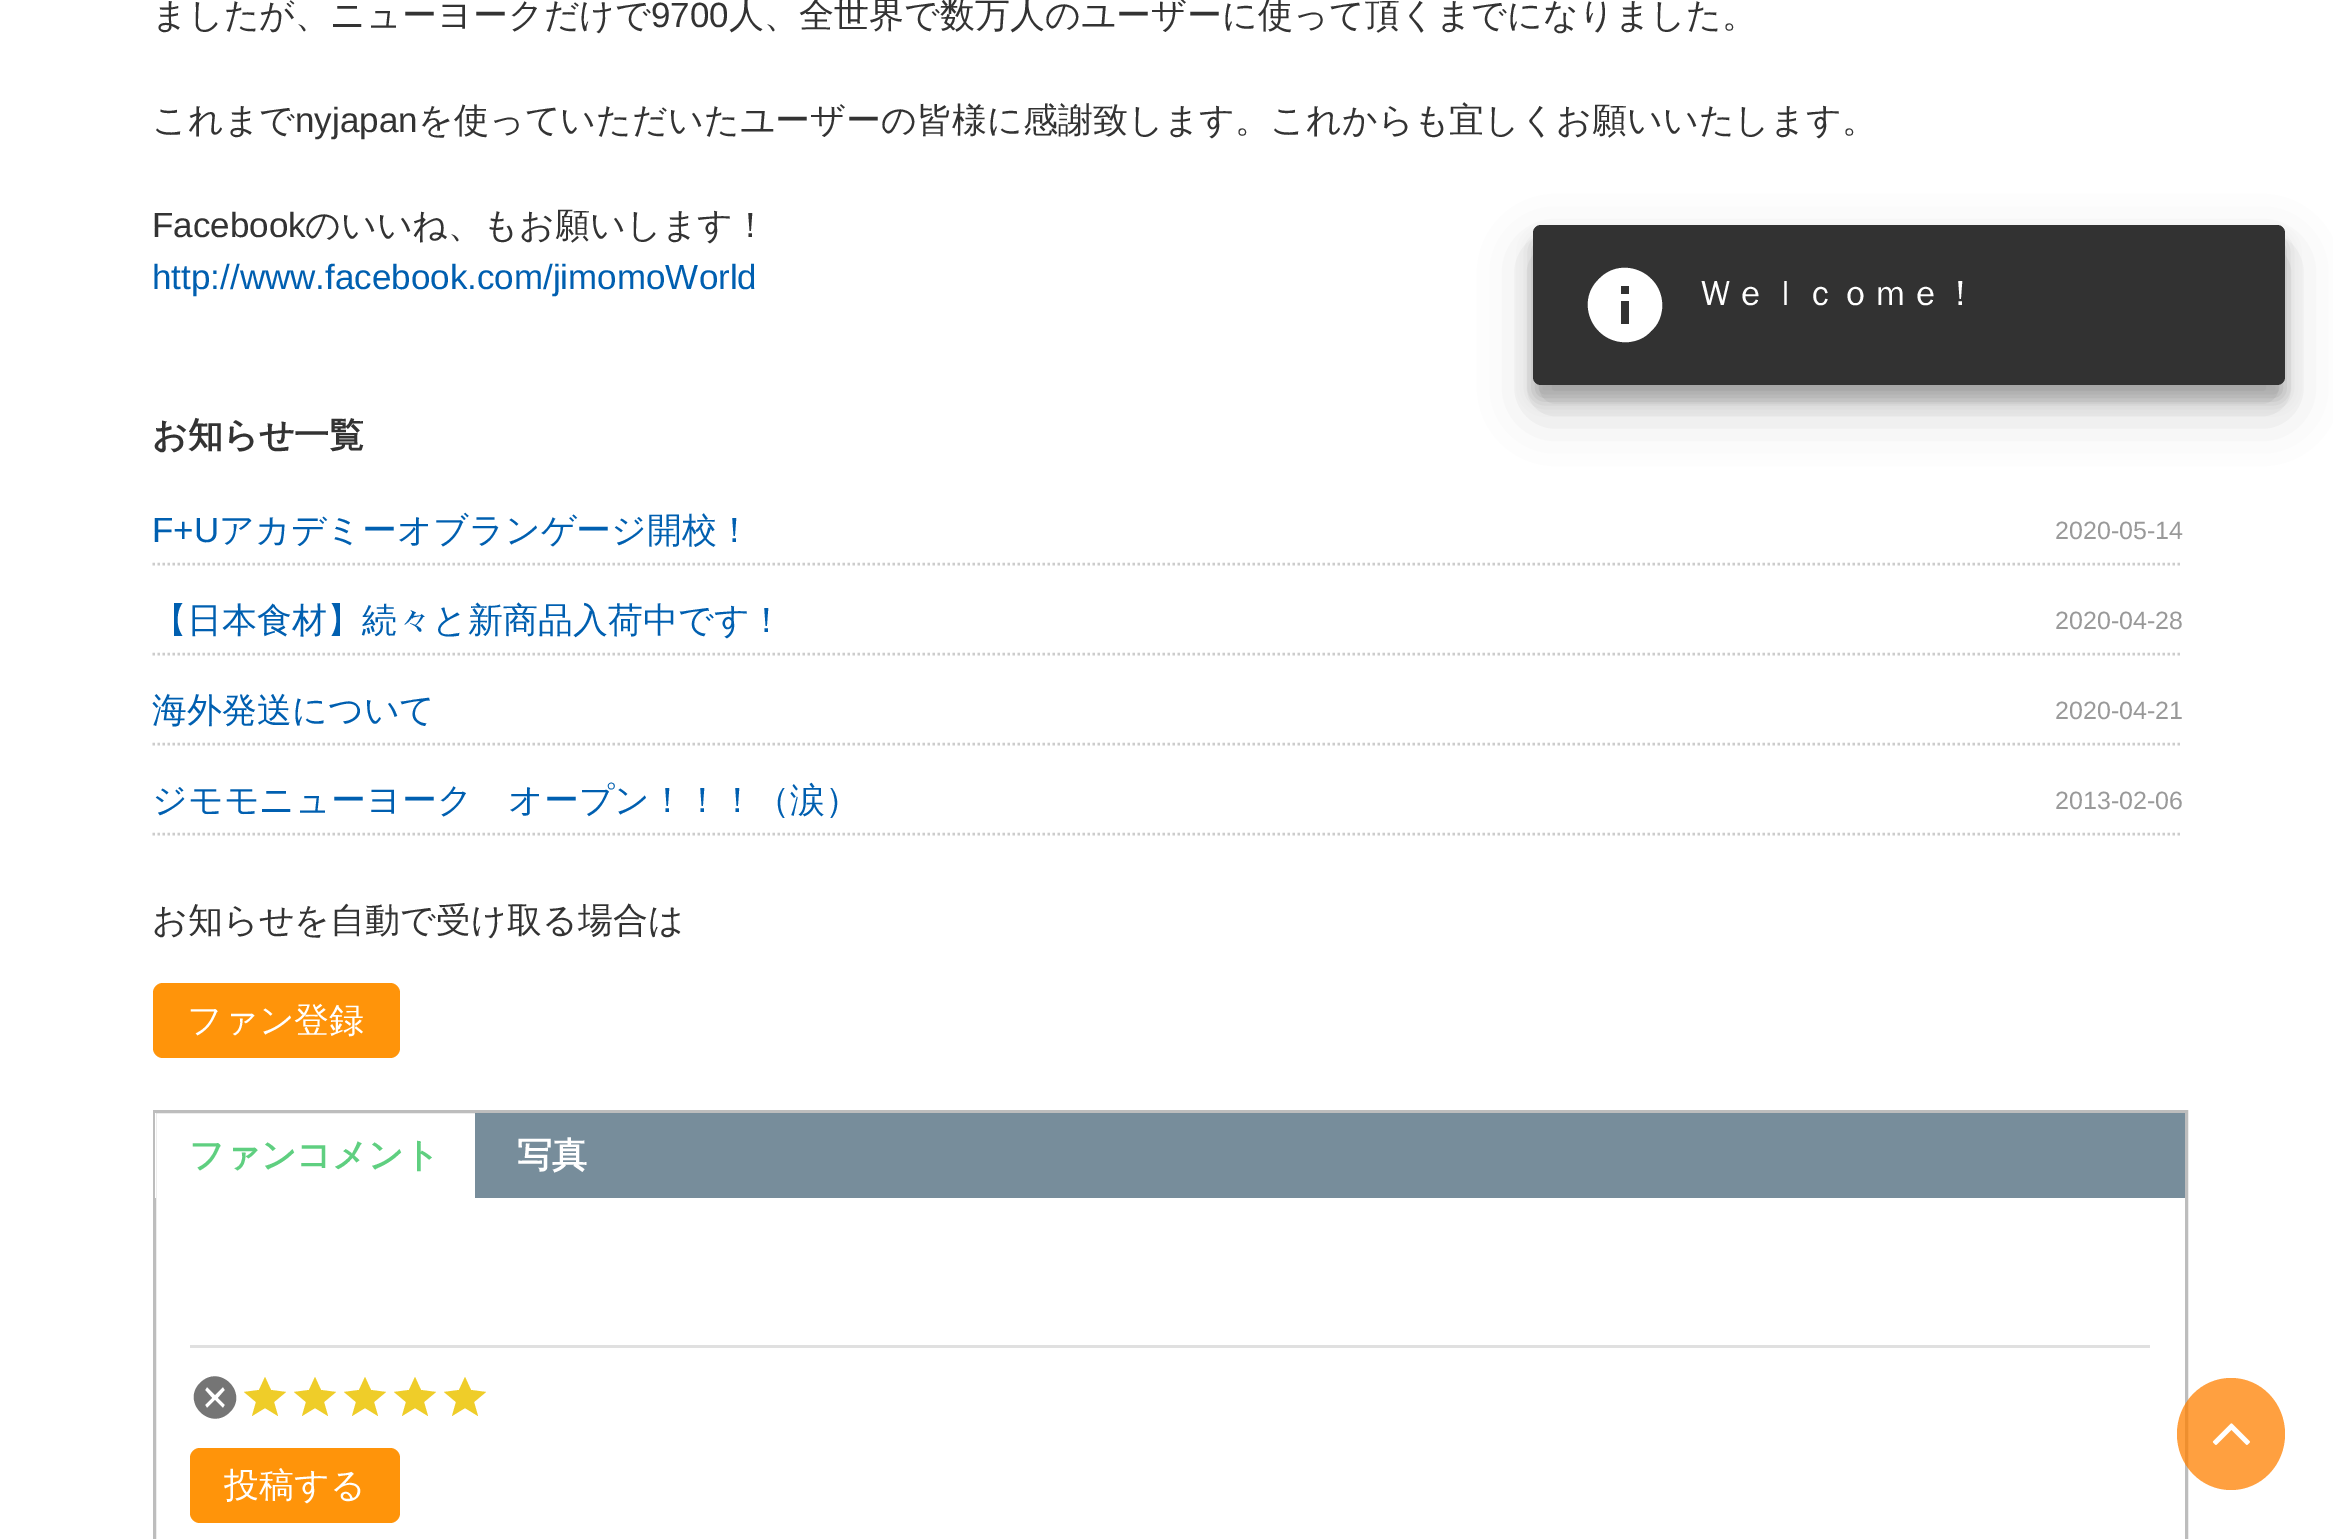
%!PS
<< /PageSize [2333 1539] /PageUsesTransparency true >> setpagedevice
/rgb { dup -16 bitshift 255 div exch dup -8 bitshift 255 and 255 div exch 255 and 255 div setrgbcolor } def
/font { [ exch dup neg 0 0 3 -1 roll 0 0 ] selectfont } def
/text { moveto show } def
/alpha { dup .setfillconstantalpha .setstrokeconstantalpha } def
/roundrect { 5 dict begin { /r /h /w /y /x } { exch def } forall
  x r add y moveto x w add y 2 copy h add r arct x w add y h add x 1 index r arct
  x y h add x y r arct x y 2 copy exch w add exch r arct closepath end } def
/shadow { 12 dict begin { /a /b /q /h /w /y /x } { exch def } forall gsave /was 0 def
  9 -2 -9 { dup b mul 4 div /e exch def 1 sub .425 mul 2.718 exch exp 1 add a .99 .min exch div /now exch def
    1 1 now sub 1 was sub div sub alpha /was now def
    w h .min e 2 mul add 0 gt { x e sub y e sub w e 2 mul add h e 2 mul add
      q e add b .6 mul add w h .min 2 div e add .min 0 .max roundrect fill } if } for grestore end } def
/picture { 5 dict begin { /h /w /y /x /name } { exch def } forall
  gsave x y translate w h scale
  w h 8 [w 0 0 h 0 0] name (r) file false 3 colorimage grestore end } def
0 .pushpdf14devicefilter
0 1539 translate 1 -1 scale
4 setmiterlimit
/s1 { /WenQuanYiZenHei-Medium 35 font 16#333333 rgb } def
/s2 { /LiberationSans-Regular 35 font 16#333333 rgb } def
/s3 { /LiberationSans-Regular 35 font 16#005FB0 rgb } def
/s4 { /WenQuanYiZenHei-Bold 35 font 16#333333 rgb } def
/s5 { /WenQuanYiZenHei-Medium 35 font 16#005FB0 rgb } def
/s6 { /LiberationSans-Regular 25 font 16#999999 rgb } def
/s7 { /WenQuanYiZenHei-Medium 35 font 16#FFFFFF rgb } def
/s8 { /WenQuanYiZenHei-Bold 35 font 16#5FCF80 rgb } def
/s9 { /WenQuanYiZenHei-Bold 35 font 16#FFFFFF rgb } def
16#FFFFFF rgb
0 0 2333 1539 rectfill
s1
(ましたが、ニューヨークだけで) 152 27 text
s2
(9700) 651 27 text
s1
(人、全世界で数万人のユーザーに使って頂くまでになりました。) 729 27 text
(これまで) 152 132 text
s2
(nyjapan) 295 132 text
s1
(を使っていただいたユーザーの皆様に感謝致します。これからも宜しくお願いいたします。) 418 132 text
s2
(Facebook) 152 237 text
s1
(のいいね、もお願いします！) 305 237 text
s3
(http://www.facebook.com/jimomoWorld) 152 289 text
s4
(お知らせ一覧) 152 447 text
16#CCCCCC rgb
2.5 setlinewidth
[2.5 2.5] 0 setdash
152.5 564 moveto 2182.5 564 lineto stroke
s3
(F+U) 152 542 text
s5
(アカデミーオブランゲージ開校！) 219 542 text
s6
(2020-05-14) 2055 539 text
16#CCCCCC rgb
152.5 654 moveto 2182.5 654 lineto stroke
s5
(【日本食材】続々と新商品入荷中です！) 152 632 text
s6
(2020-04-28) 2055 629 text
16#CCCCCC rgb
152.5 744 moveto 2182.5 744 lineto stroke
s5
(海外発送について) 152 722 text
s6
(2020-04-21) 2055 719 text
16#CCCCCC rgb
152.5 834 moveto 2182.5 834 lineto stroke
s5
(ジモモニューヨーク　オープン！！！（涙）) 152 812 text
s6
(2013-02-06) 2055 809 text
s1
(お知らせを自動で受け取る場合は) 152 932 text
16#FF940A rgb
153 983 247 75 10 roundrect fill
s7
(ファン登録) 187 1032 text
16#BDBDBD rgb
3 setlinewidth
[] 0 setdash
154.5 1111.5 2032 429 rectstroke
16#778D9B rgb
475 1113 1710 85 rectfill
16#FFFFFF rgb
155 1113 1 85 rectfill
s8
(ファンコメント) 189 1167 text
s9
(写真) 517 1167 text
16#E0E0E0 rgb
190 1345 1960 3 rectfill
16#757575 rgb
225 1405 moveto 218 1398 lineto 225 1390 lineto 223 1387 lineto 215 1395 lineto 207 1387 lineto 205 1390 lineto 212 1398 lineto 205 1405 lineto 207 1408 lineto 215 1400 lineto 223 1408 lineto closepath 200 1383 moveto 220 1363 249 1393 230 1412 curveto 210 1432 181 1402 200 1383 curveto closepath fill
16#EFCD29 rgb
265 1408 moveto 252 1416 lineto 256 1402 lineto 244 1392 lineto 259 1390 lineto 265 1377 lineto 271 1390 lineto 286 1392 lineto 274 1402 lineto 278 1416 lineto closepath fill
315 1408 moveto 302 1416 lineto 306 1402 lineto 294 1392 lineto 309 1390 lineto 315 1377 lineto 321 1390 lineto 336 1392 lineto 324 1402 lineto 328 1416 lineto closepath fill
365 1408 moveto 352 1416 lineto 356 1402 lineto 344 1392 lineto 359 1390 lineto 365 1377 lineto 371 1390 lineto 386 1392 lineto 374 1402 lineto 378 1416 lineto closepath fill
415 1408 moveto 402 1416 lineto 406 1402 lineto 394 1392 lineto 409 1390 lineto 415 1377 lineto 421 1390 lineto 436 1392 lineto 424 1402 lineto 428 1416 lineto closepath fill
465 1408 moveto 452 1416 lineto 456 1402 lineto 444 1392 lineto 459 1390 lineto 465 1377 lineto 471 1390 lineto 486 1392 lineto 474 1402 lineto 478 1416 lineto closepath fill
16#FF940A rgb
190 1448 210 75 10 roundrect fill
s7
(投稿する) 224 1497 text
16#000000 rgb
1533 240 752 160 8 7.5 0.23 shadow
1533 250 752 160 8 25 0.19 shadow
16#323232 rgb
1533 225 752 160 8 roundrect fill
16#FFFFFF rgb
1629 294 moveto 1629 286 lineto 1621 286 lineto 1621 294 lineto closepath 1629 324 moveto 1629 301 lineto 1621 301 lineto 1621 324 lineto closepath 1599 279 moveto 1623 254 1665 274 1662 309 curveto 1661 317 1658 325 1651 331 curveto 1645 338 1637 341 1629 342 curveto 1594 345 1574 303 1599 279 curveto closepath fill
(Ｗｅｌｃｏｍｅ！) 1698 305 text
0.75 alpha
16#FF8000 rgb
2231 1378 moveto 2261 1378 2285 1403 2285 1434 curveto 2285 1465 2261 1490 2231 1490 curveto 2201 1490 2177 1465 2177 1434 curveto 2177 1403 2201 1378 2231 1378 curveto closepath fill
1 alpha
(pic1.raw) 2212 1423 38 22 picture
.poppdf14devicefilter showpage
